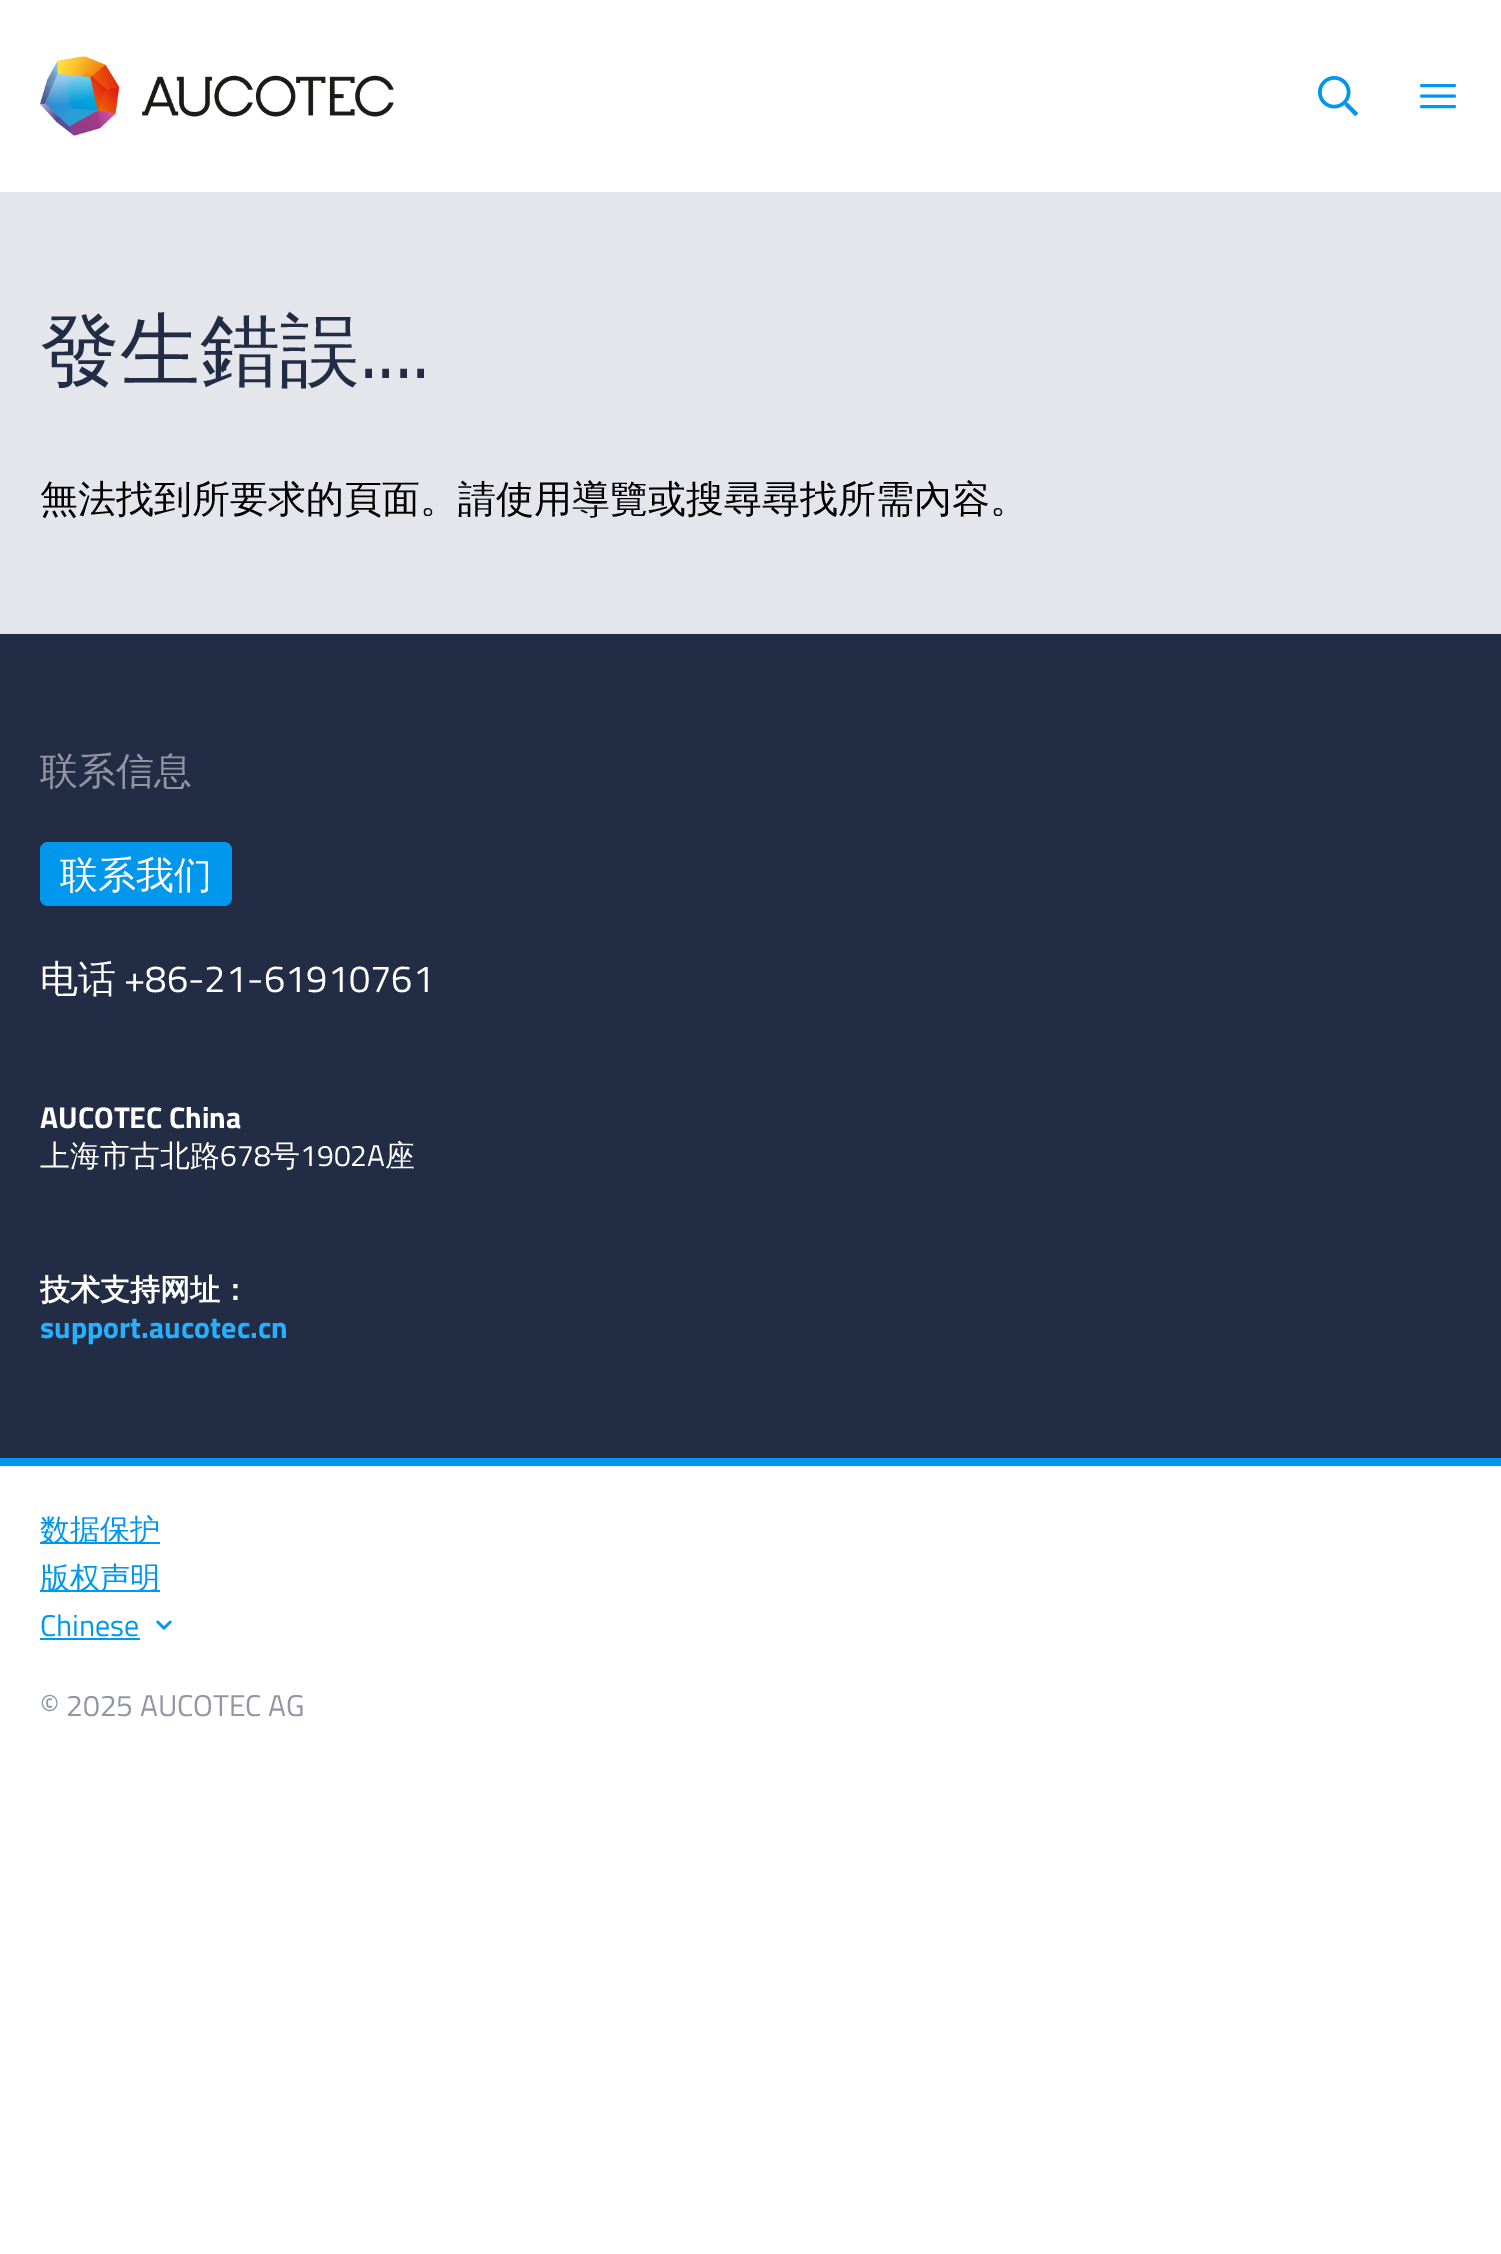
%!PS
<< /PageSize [1501 2254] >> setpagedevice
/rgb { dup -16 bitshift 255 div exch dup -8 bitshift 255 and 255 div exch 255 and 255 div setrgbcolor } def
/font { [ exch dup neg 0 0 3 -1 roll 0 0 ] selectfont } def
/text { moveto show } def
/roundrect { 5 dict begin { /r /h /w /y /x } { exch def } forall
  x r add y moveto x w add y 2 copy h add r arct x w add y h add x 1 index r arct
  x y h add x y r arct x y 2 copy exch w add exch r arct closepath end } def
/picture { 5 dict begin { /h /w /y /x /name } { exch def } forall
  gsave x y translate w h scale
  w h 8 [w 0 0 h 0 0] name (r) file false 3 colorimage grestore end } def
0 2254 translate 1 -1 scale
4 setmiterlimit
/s1 { /WenQuanYiZenHei-Medium 80 font 16#222C45 rgb } def
/s2 { /TitilliumWeb-Regular 80 font 16#222C45 rgb } def
/s3 { /WenQuanYiZenHei-Medium 38 font 16#000000 rgb } def
/s4 { /WenQuanYiZenHei-Medium 38 font 16#9196A2 rgb } def
/s5 { /WenQuanYiZenHei-Medium 38 font 16#FFFFFF rgb } def
/s6 { /TitilliumWeb-Regular 38 font 16#FFFFFF rgb } def
/s7 { /TitilliumWeb-Bold 30 font 16#FFFFFF rgb } def
/s8 { /WenQuanYiZenHei-Medium 30 font 16#FFFFFF rgb } def
/s9 { /TitilliumWeb-Regular 30 font 16#FFFFFF rgb } def
/s10 { /WenQuanYiZenHei-Bold 30 font 16#FFFFFF rgb } def
/s11 { /TitilliumWeb-Bold 30 font 16#26B0FF rgb } def
/s12 { /WenQuanYiZenHei-Medium 30 font 16#0097EC rgb } def
/s13 { /TitilliumWeb-Regular 30 font 16#0097EC rgb } def
/s14 { /TitilliumWeb-Regular 30 font 16#9196A2 rgb } def
16#FFFFFF rgb
0 0 1501 2254 rectfill
(pic1.raw) 40 56 354 80 picture
(pic2.raw) 1318 76 40 40 picture
16#0097EC rgb
3 setlinewidth
1 setlinecap
1 setlinejoin
1421.5 85.5 moveto 1454.5 85.5 lineto 1421.5 96 moveto 1454.5 96 lineto 1421.5 106.5 moveto 1454.5 106.5 lineto stroke
16#E4E6EB rgb
0 192 1501 442 rectfill
s1
(發生錯誤) 40 378 text
s2
(....) 360 378 text
s3
(無法找到所要求的頁面。請使用導覽或搜尋尋找所需內容。) 40 512 text
16#222C45 rgb
0 634 1501 824 rectfill
s4
(联系信息) 40 784 text
16#0097EC rgb
40 842 192 64 8 roundrect fill
s5
(联系我们) 60 888 text
(电话) 40 992 text
s6
(+86-21-61910761) 124 992 text
s7
(AUCOTEC China) 40 1128 text
s8
(上海市古北路) 40 1166 text
s9
(678) 220 1166 text
s8
(号) 270 1166 text
s9
(1902A) 300 1166 text
s8
(座) 385 1166 text
s10
(技术支持网址：) 40 1300 text
s11
(support.aucotec.cn) 40 1338 text
16#0097EC rgb
0 1458 1501 8 rectfill
40 1542 120 2 rectfill
s12
(数据保护) 40 1540 text
40 1590 120 2 rectfill
(版权声明) 40 1588 text
s13
(Chinese) 40 1636 text
40 1638 100 2 rectfill
(pic3.raw) 156 1620 16 10 picture
s14
(© 2025 AUCOTEC AG) 40 1716 text
showpage
